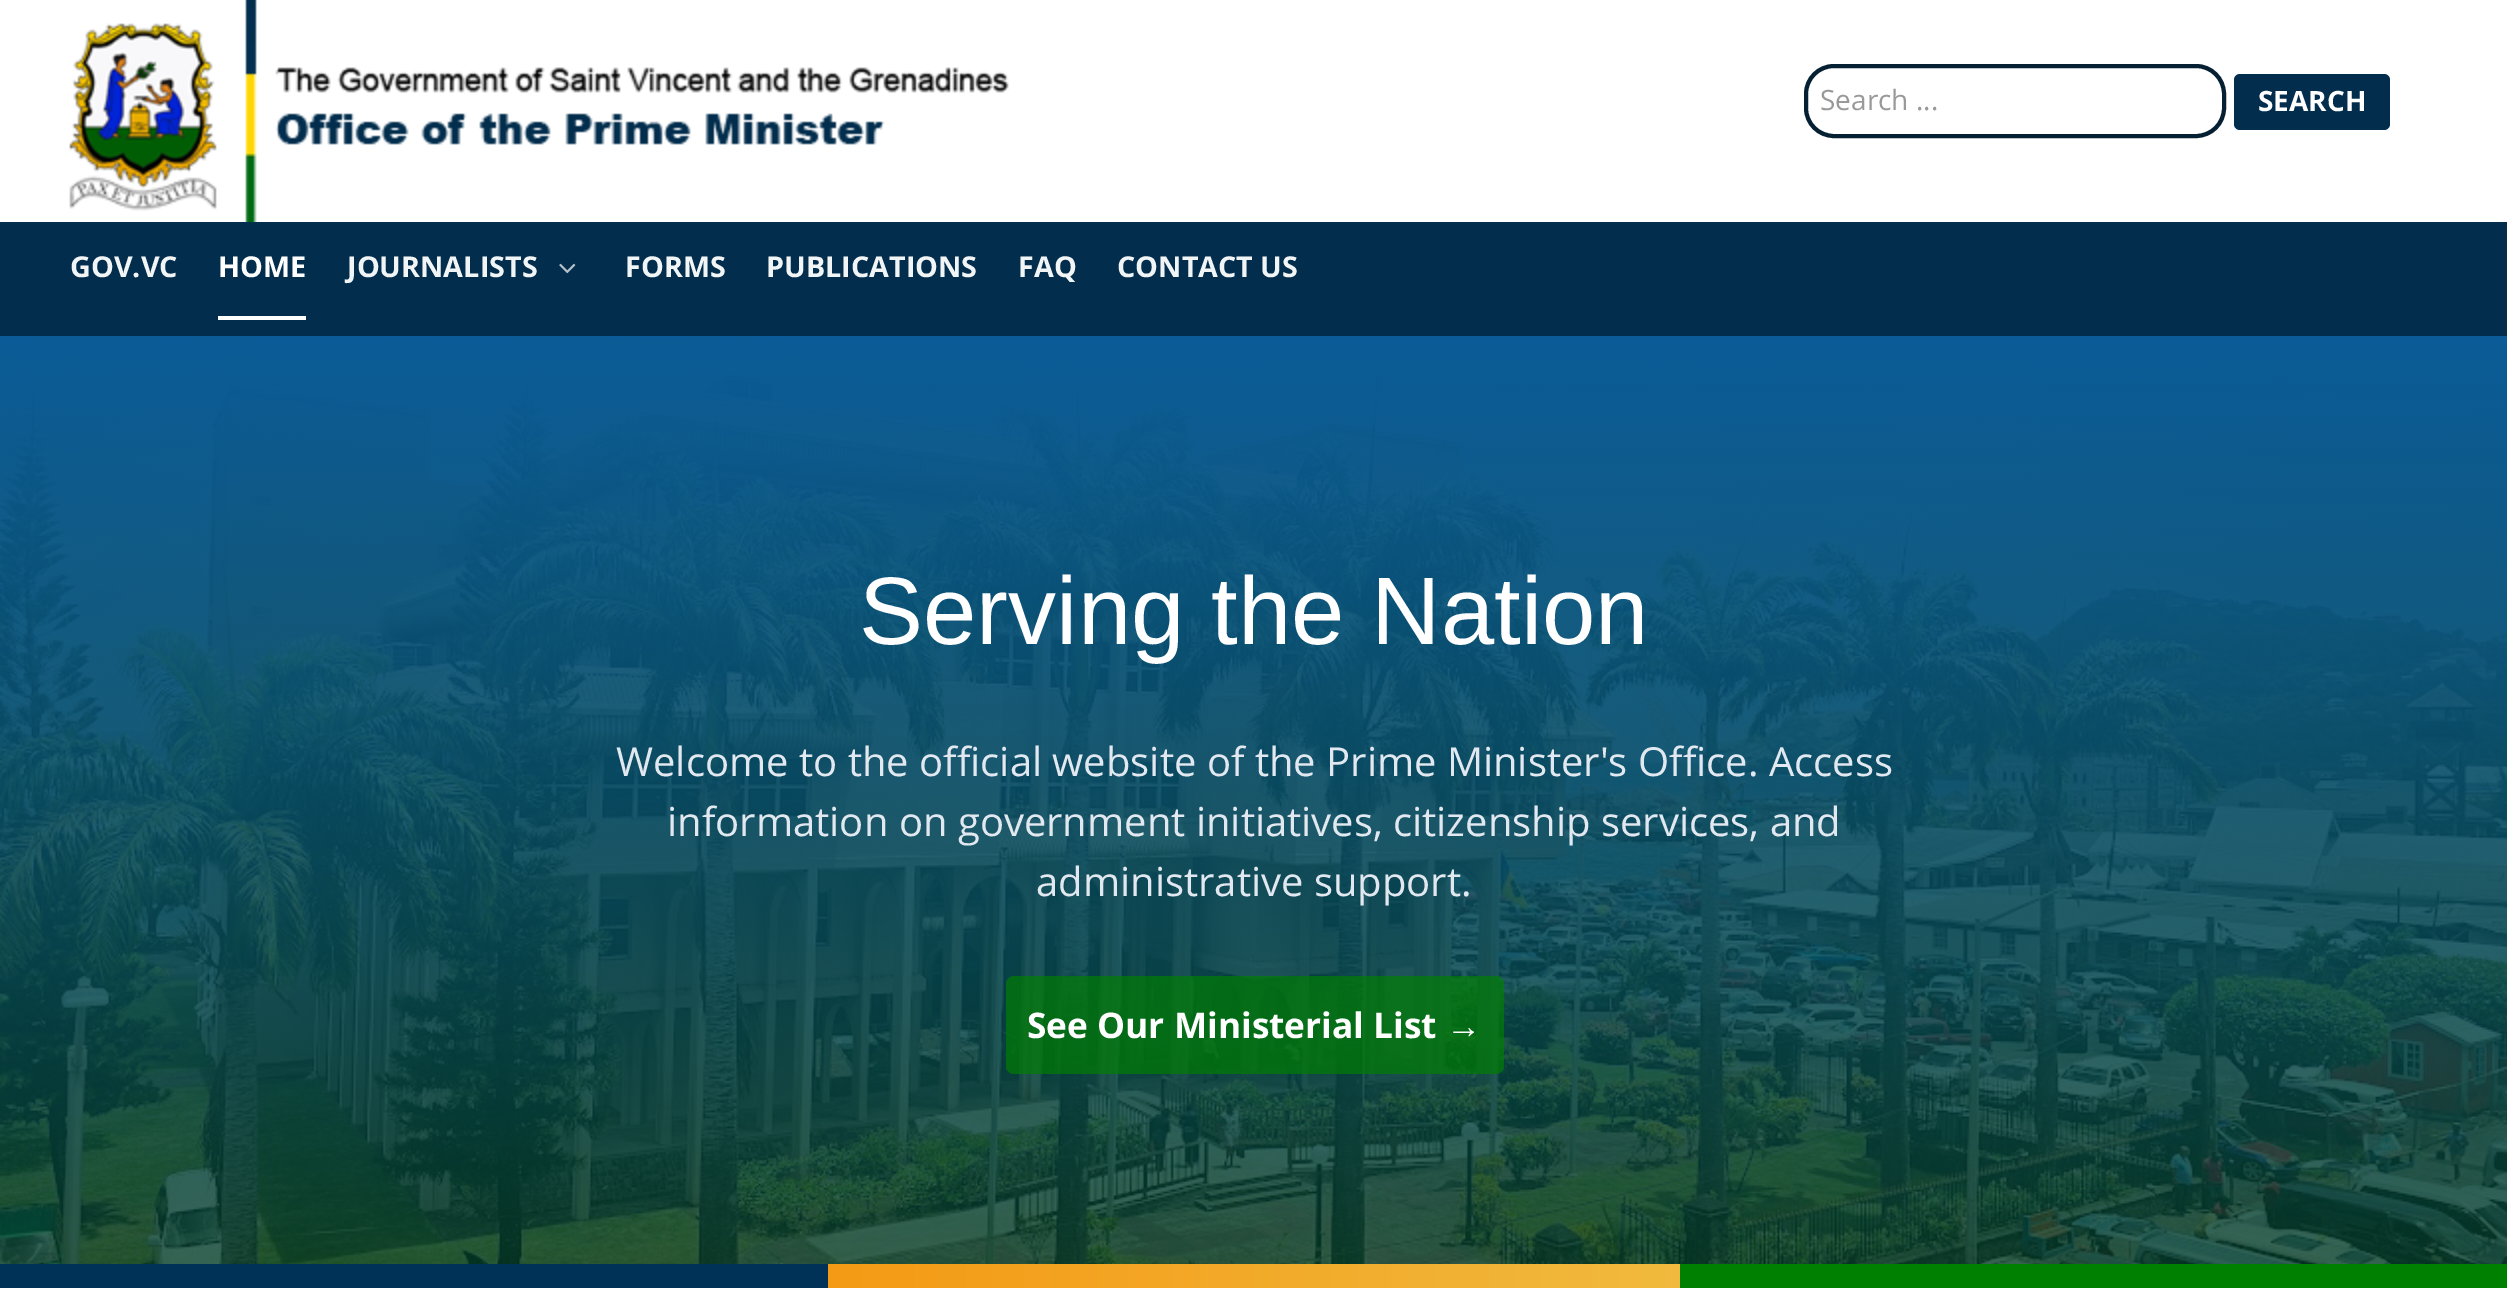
%!PS
<< /PageSize [2507 1296] /PageUsesTransparency true >> setpagedevice
/rgb { dup -16 bitshift 255 div exch dup -8 bitshift 255 and 255 div exch 255 and 255 div setrgbcolor } def
/font { [ exch dup neg 0 0 3 -1 roll 0 0 ] selectfont } def
/text { moveto show } def
/alpha { dup .setfillconstantalpha .setstrokeconstantalpha } def
/roundrect { 5 dict begin { /r /h /w /y /x } { exch def } forall
  x r add y moveto x w add y 2 copy h add r arct x w add y h add x 1 index r arct
  x y h add x y r arct x y 2 copy exch w add exch r arct closepath end } def
/picture { 5 dict begin { /h /w /y /x /name } { exch def } forall
  gsave x y translate w h scale
  w h 8 [w 0 0 h 0 0] name (r) file false 3 colorimage grestore end } def
0 .pushpdf14devicefilter
0 1296 translate 1 -1 scale
4 setmiterlimit
/s1 { /OpenSans-Regular 28 font 16#999999 rgb } def
/s2 { /OpenSans-Bold 28 font 16#FFFFFF rgb } def
/s3 { /OpenSans-Bold 28.75 font 16#F2F5F6 rgb } def
/s4 { /OpenSans-Bold 28.75 font 16#FFFFFF rgb } def
/s5 { /LiberationSans-Regular 96 font 16#FFFFFF rgb } def
/s6 { /OpenSans-Regular 40 font 16#E2E8F0 rgb } def
/s7 { /OpenSans-Bold 35.25 font 16#FFFFFF rgb } def
/s8 { /LiberationSans-Bold 35.25 font 16#FFFFFF rgb } def
16#FFFFFF rgb
0 0 2507 1296 rectfill
(pic1.raw) 69 0 940 222 picture
16#062033 rgb
4 setlinewidth
1806 66 418 70 28 roundrect stroke
s1
(Search ...) 1820 110 text
16#022D4D rgb
2234 74 156 56 6 roundrect fill
s2
(SEARCH) 2258 111 text
16#022D4D rgb
0 222 2507 114 rectfill
s3
(GOV.VC) 70 277 text
s4
(HOME) 218 277 text
218 316 88 4 rectfill
s3
(JOURNALISTS) 347 277 text
(pic2.raw) 559 263 17 11 picture
(FORMS) 625 277 text
(PUBLICATIONS) 766 277 text
(FAQ) 1018 277 text
(CONTACT US) 1117 277 text
(pic3.raw) 0 336 2507 928 picture
s5
(Serving the Nation) 859 644 text
s6
(Welcome to the official website of the Prime Minister's Office. Access) 616 776 text
(information on government initiatives, citizenship services, and) 667 836 text
(administrative support.) 1036 896 text
0.67 alpha
16#008000 rgb
1006 976 498 98 8 roundrect fill
1 alpha
s7
(See Our Ministerial List) 1027 1038 text
s8
(→) 1446 1038 text
gsave 0 1264 moveto 2507 1264 lineto 2507 1288 lineto 0 1288 lineto closepath clip newpath
<< /ShadingType 2 /ColorSpace /DeviceRGB /Coords [0 1276 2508 1276] /Extend [true true] /Function << /FunctionType 3 /Domain [0 1] /Functions [<< /FunctionType 2 /Domain [0 1] /C0 [0 0.196 0.341] /C1 [0 0.196 0.341] /N 1 >> << /FunctionType 2 /Domain [0 1] /C0 [0.957 0.604 0.082] /C1 [0.945 0.729 0.243] /N 1 >> << /FunctionType 2 /Domain [0 1] /C0 [0 0.502 0] /C1 [0 0.502 0] /N 1 >>] /Bounds [0.33 0.67] /Encode [0 1 0 1 0 1] >> >> shfill grestore
.poppdf14devicefilter showpage
